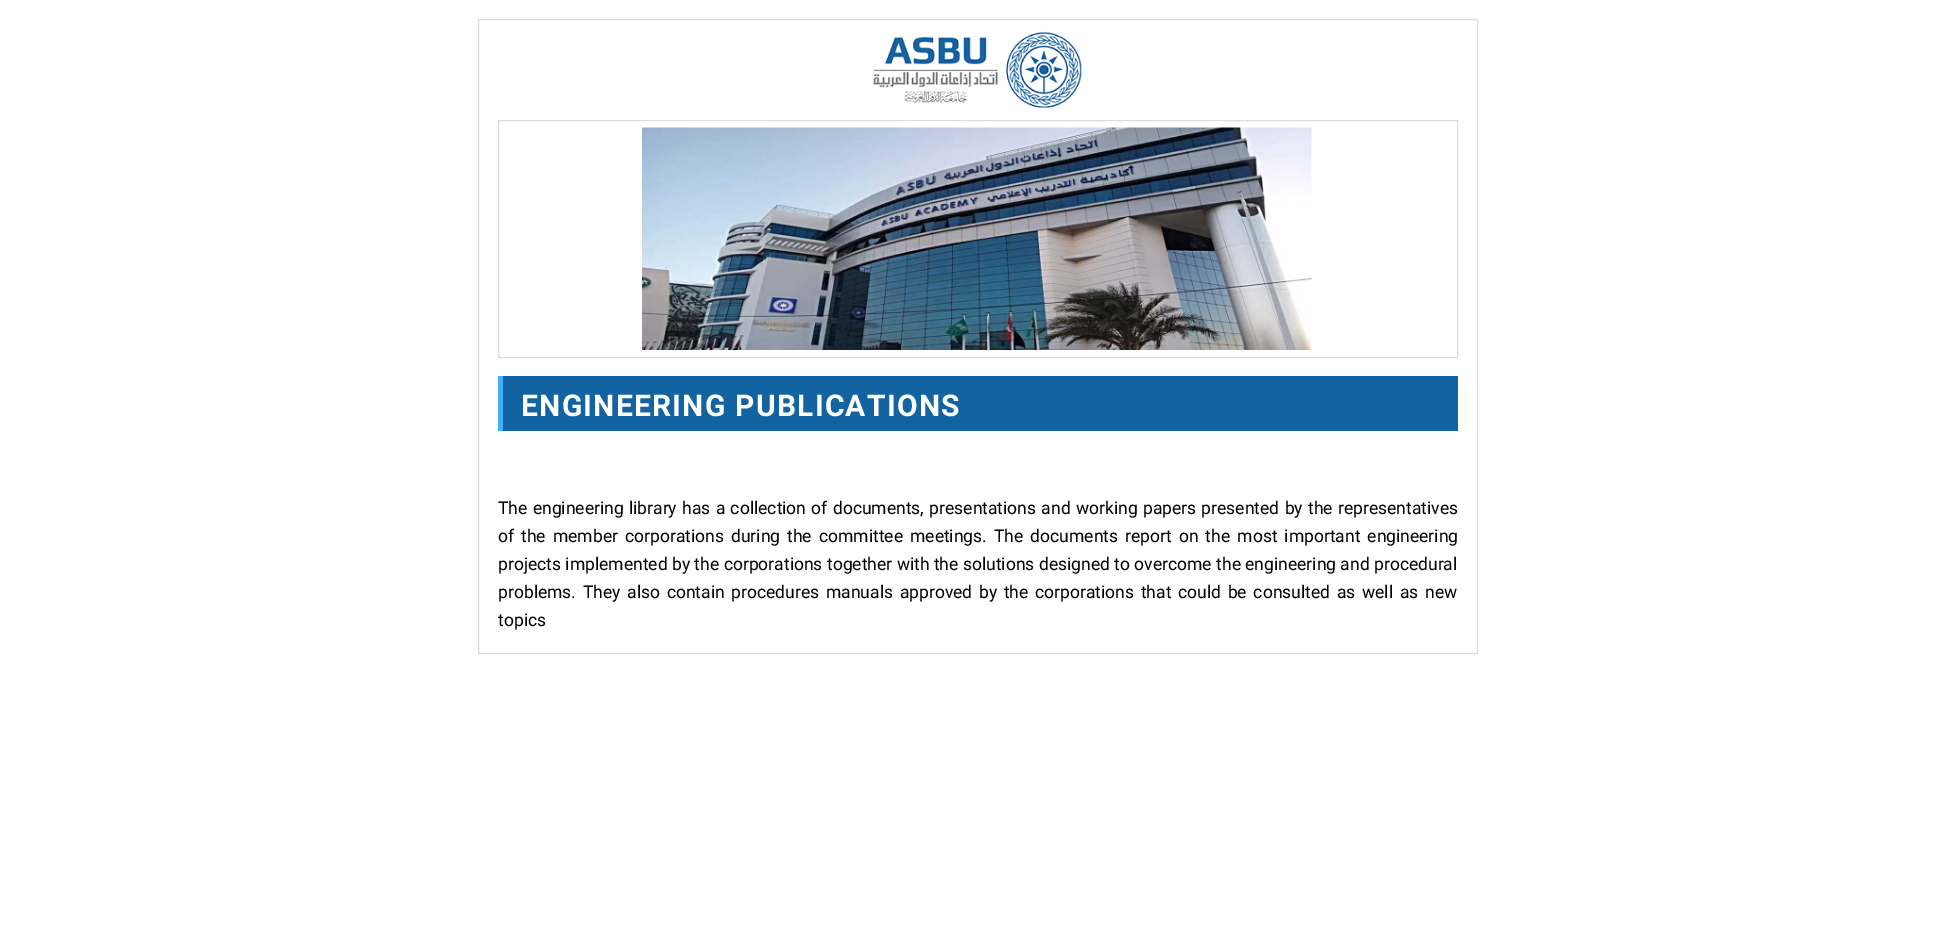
%!PS
<< /PageSize [1954 930] >> setpagedevice
/rgb { dup -16 bitshift 255 div exch dup -8 bitshift 255 and 255 div exch 255 and 255 div setrgbcolor } def
/font { [ exch dup neg 0 0 3 -1 roll 0 0 ] selectfont } def
/text { moveto show } def
/picture { 5 dict begin { /h /w /y /x /name } { exch def } forall
  gsave x y translate w h scale
  w h 8 [w 0 0 h 0 0] name (r) file false 3 colorimage grestore end } def
0 930 translate 1 -1 scale
4 setmiterlimit
/s1 { /Roboto-Regular 17.5 font 16#000000 rgb } def
16#FFFFFF rgb
0 0 1954 930 rectfill
16#DDDDDD rgb
478.5 19.5 999 634 rectstroke
(pic1.raw) 873 32 209 76 picture
498.5 120.5 959 237 rectstroke
(pic2.raw) 642 127 670 223 picture
16#1263A2 rgb
503 376 955 55 rectfill
16#41AEFF rgb
498 376 5 55 rectfill
/Roboto-Bold 30 font
16#FFFFFF rgb
521 416 moveto 1.25 0 (ENGINEERING PUBLICATIONS) ashow
/Roboto-Regular 17.5 font
16#000000 rgb
498 514 moveto 1 0 32 (The engineering library has a collection of documents, presentations and working papers presented by the representatives) widthshow
498 542 moveto 2.75 0 32 (of the member corporations during the committee meetings. The documents report on the most important engineering) widthshow
498 570 moveto 0.1 0 32 (projects implemented by the corporations together with the solutions designed to overcome the engineering and procedural) widthshow
498 598 moveto 2.4 0 32 (problems. They also contain procedures manuals approved by the corporations that could be consulted as well as new) widthshow
(topics) 498 626 text
showpage
